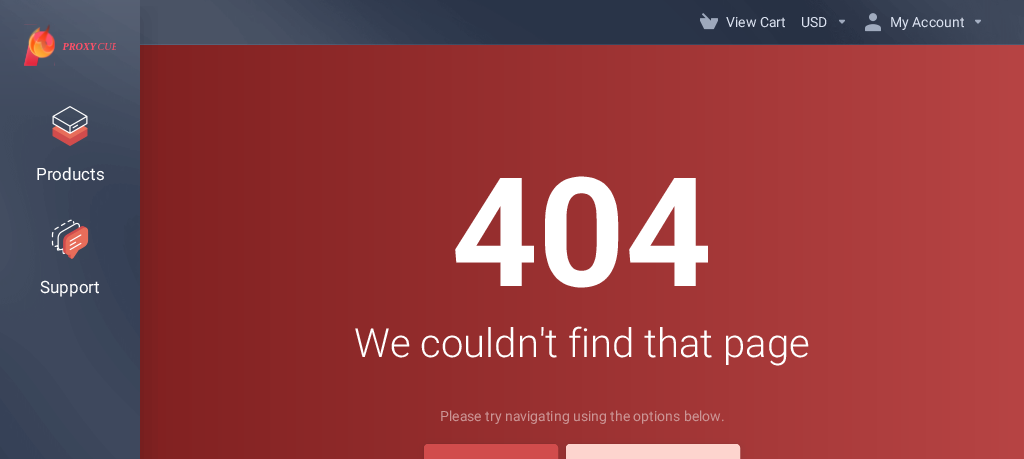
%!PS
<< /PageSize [1024 459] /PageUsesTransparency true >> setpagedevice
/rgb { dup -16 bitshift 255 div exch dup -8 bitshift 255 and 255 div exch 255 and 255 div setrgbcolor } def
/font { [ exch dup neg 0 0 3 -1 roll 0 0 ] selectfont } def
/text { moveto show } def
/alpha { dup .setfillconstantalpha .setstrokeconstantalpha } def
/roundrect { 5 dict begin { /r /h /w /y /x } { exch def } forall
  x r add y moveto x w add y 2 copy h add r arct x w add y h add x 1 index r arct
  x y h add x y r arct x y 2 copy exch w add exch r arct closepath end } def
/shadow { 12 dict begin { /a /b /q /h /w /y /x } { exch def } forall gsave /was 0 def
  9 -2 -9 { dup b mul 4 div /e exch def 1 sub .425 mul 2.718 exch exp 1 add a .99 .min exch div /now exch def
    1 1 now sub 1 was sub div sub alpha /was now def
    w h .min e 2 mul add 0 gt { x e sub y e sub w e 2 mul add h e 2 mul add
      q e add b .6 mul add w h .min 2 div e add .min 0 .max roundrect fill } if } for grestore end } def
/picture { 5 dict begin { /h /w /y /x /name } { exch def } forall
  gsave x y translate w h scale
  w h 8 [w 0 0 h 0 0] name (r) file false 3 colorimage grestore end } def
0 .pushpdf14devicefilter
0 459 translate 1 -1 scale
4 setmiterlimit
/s1 { /Roboto-Regular 17 font 16#FFFFFF rgb } def
/s2 { /Roboto-Regular 14 font 16#DBE2F0 rgb } def
/s3 { /Roboto-Bold 152 font 16#FFFFFF rgb } def
/s4 { /Roboto-Light 40 font 16#FFFFFF rgb } def
/s5 { /Roboto-Regular 14 font 16#CB9595 rgb } def
16#2C374C rgb
0 0 1024 459 rectfill
(pic1.raw) 0 0 1024 459 picture
0.12 alpha
16#B2CCFF rgb
140 44 884 1 rectfill
1 alpha
gsave 140 45 moveto 1024 45 lineto 1024 459 lineto 140 459 lineto closepath clip newpath
<< /ShadingType 2 /ColorSpace /DeviceRGB /Coords [140 323 1024 323] /Extend [true true] /Function << /FunctionType 2 /Domain [0 1] /C0 [0.506 0.129 0.129] /C1 [0.718 0.267 0.267] /N 1 >> >> shfill grestore
gsave
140 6 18 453 rectclip
16#000000 rgb
0 16 140 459 0 16 0.16 shadow
grestore
0.16 alpha
gsave 0 0 moveto 140 0 lineto 140 459 lineto 0 459 lineto closepath clip newpath
<< /ShadingType 2 /ColorSpace /DeviceRGB /Coords [70 0 70 459] /Extend [true true] /Function << /FunctionType 3 /Domain [0 1] /Functions [<< /FunctionType 2 /Domain [0 1] /C0 [0.592 0.643 0.745] /C1 [0.365 0.412 0.502] /N 1 >> << /FunctionType 2 /Domain [0 1] /C0 [0.365 0.412 0.502] /C1 [0.365 0.412 0.502] /N 1 >>] /Bounds [0.24] /Encode [0 1 0 1] >> >> shfill grestore
1 alpha
(pic2.raw) 24 24 92 42 picture
(pic3.raw) 52 106 36 40 picture
s1
(Products) 36 180 text
(pic4.raw) 51 219 38 40 picture
(Support) 40 293 text
(pic5.raw) 700 13 18 17 picture
s2
(View Cart) 726 27 text
(USD) 801 27 text
(pic6.raw) 839 19 6 5 picture
(pic7.raw) 865 13 16 19 picture
(My Account) 890 27 text
(pic8.raw) 975 19 6 5 picture
s3
(404) 451 286 text
s4
(We couldn't find that page) 354 357 text
s5
(Please try navigating using the options below.) 440 421 text
16#000000 rgb
424 445 134 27 4 3 0.08 shadow
424 444 134 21 4 0.5 0.1 shadow
16#D14C4C rgb
424.5 444.5 133 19 3.5 roundrect gsave fill grestore
stroke
16#000000 rgb
566 445 174 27 4 3 0.08 shadow
566 444 174 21 4 0.5 0.1 shadow
16#FDD4CE rgb
566.5 444.5 173 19 3.5 roundrect gsave fill grestore
stroke
.poppdf14devicefilter showpage
